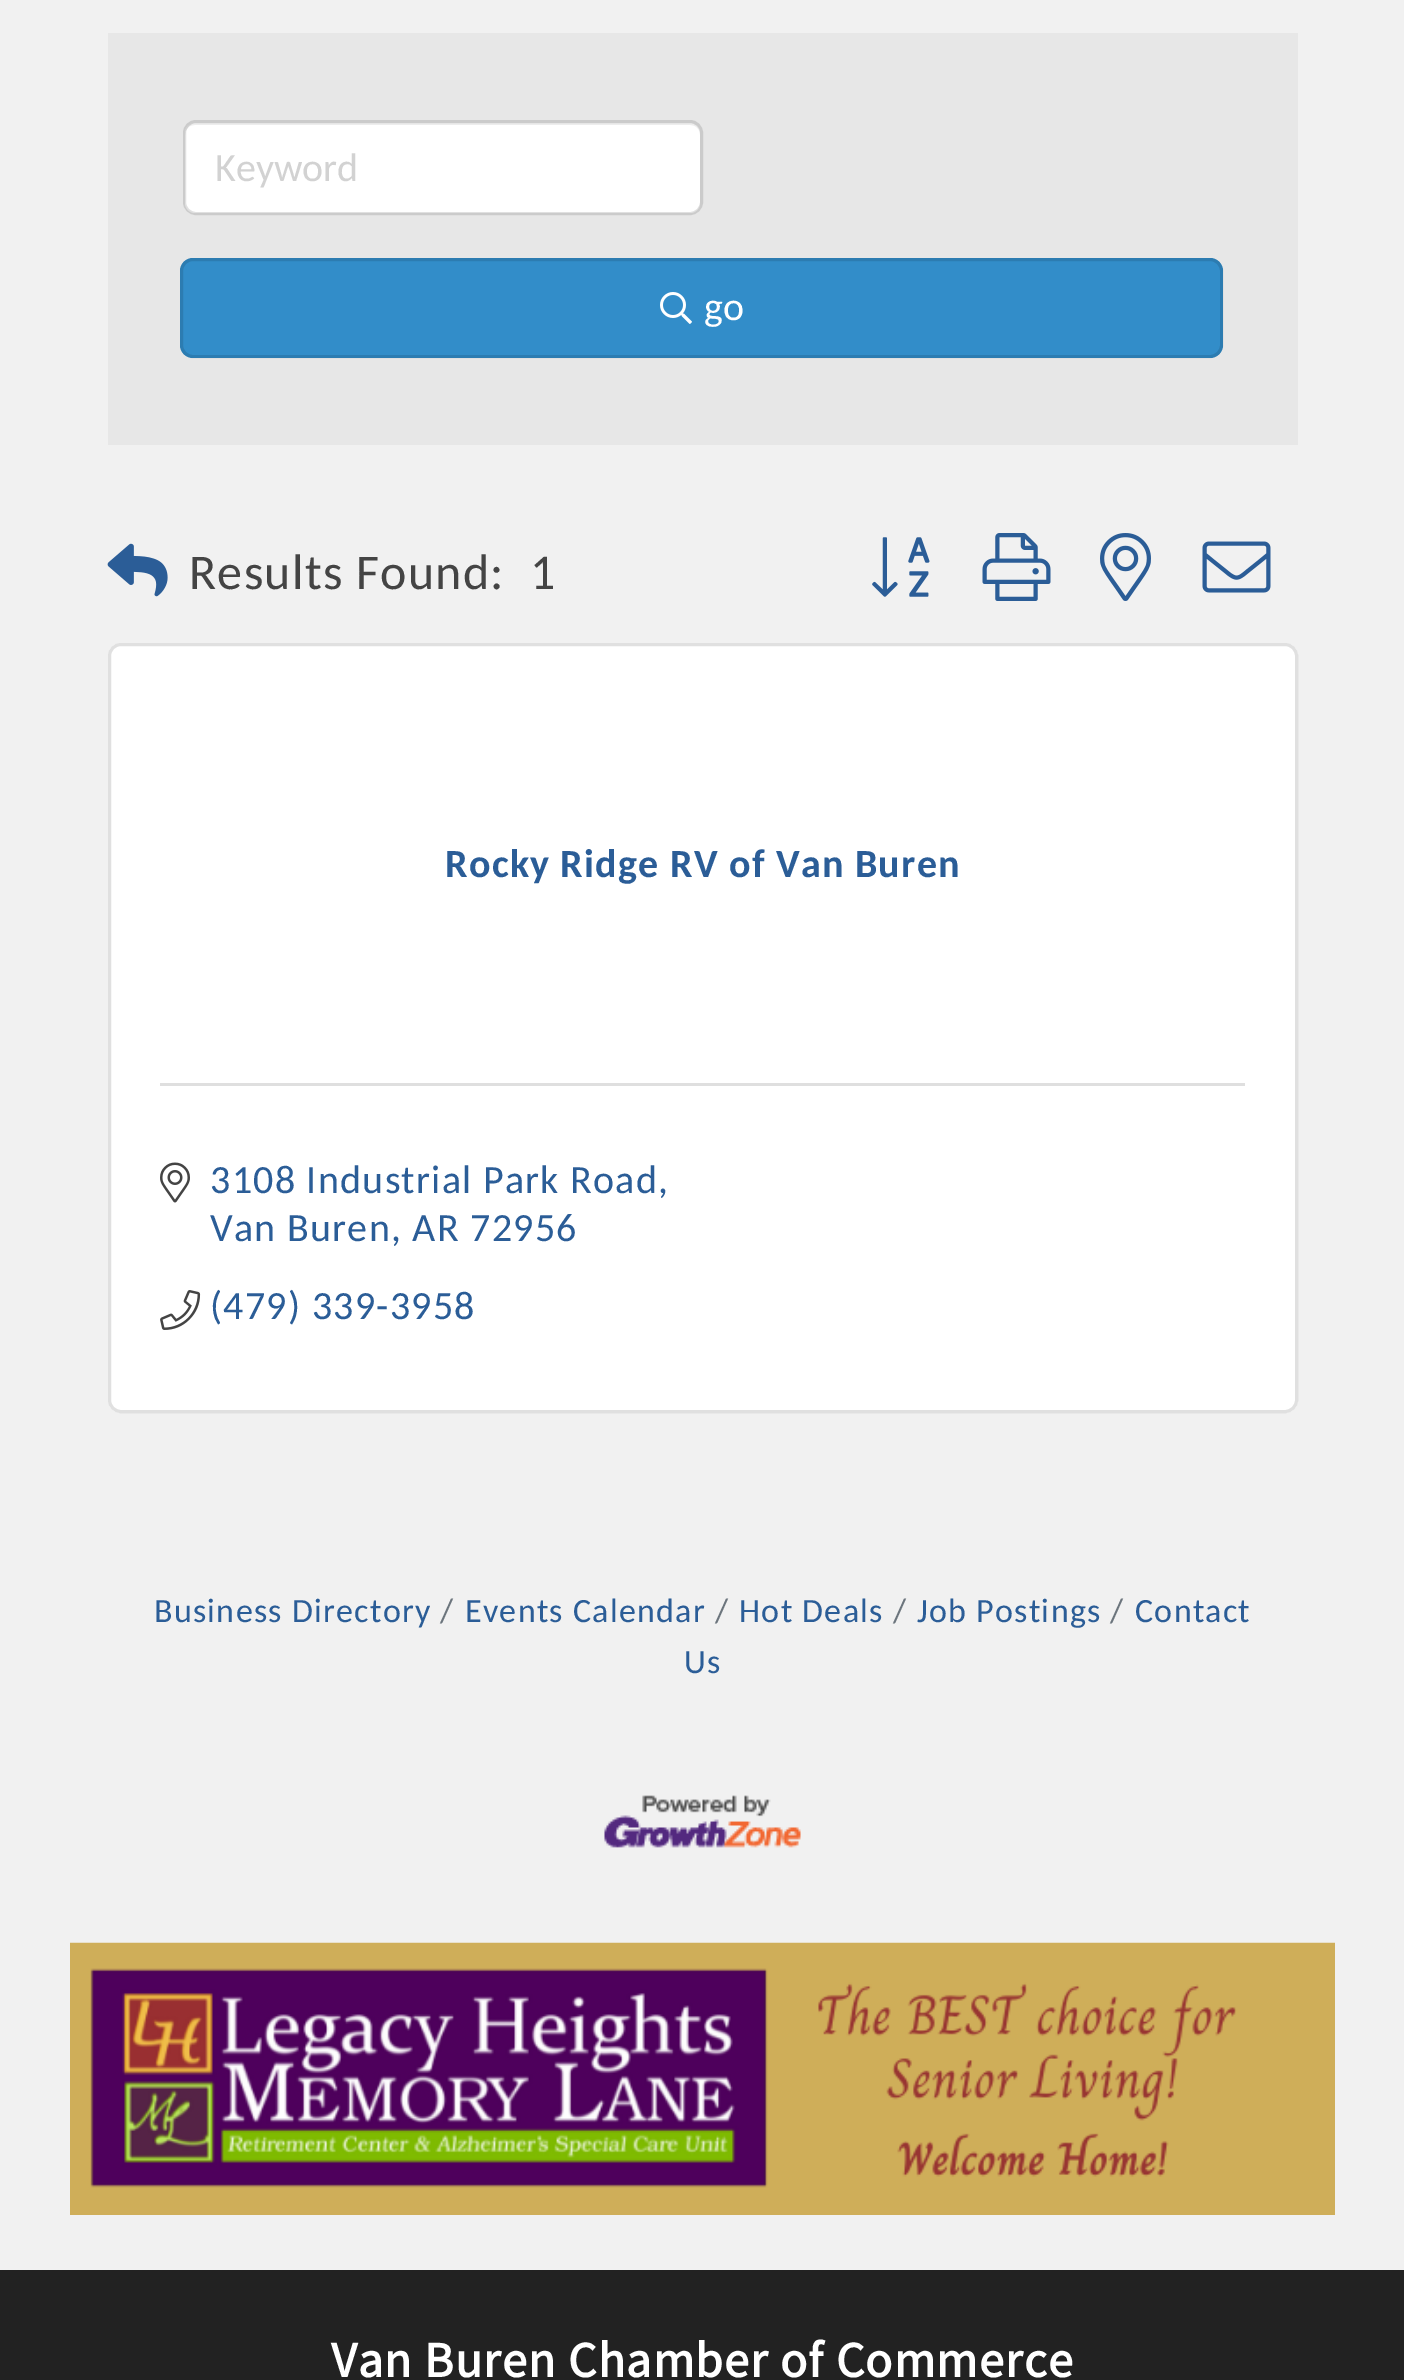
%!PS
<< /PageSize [1404 2380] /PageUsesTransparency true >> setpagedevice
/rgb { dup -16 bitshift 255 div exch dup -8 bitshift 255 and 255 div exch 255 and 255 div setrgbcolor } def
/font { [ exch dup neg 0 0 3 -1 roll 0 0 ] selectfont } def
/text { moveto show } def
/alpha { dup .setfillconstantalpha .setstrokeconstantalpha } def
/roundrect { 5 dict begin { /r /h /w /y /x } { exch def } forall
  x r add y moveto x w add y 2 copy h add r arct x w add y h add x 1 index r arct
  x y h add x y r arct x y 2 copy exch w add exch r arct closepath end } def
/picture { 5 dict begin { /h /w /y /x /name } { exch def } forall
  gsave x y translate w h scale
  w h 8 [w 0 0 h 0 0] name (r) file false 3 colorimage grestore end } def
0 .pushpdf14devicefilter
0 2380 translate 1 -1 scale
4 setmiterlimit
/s1 { /Carlito-Regular 40 font 16#D2D2D2 rgb } def
/s2 { /Carlito-Regular 40 font 16#FFFFFF rgb } def
16#FFFFFF rgb
0 0 1404 2380 rectfill
16#F1F1F1 rgb
0 -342 moveto 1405 -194 lineto 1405 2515 lineto 0 2368 lineto closepath fill
16#E7E7E7 rgb
108 33 1190 412 rectfill
16#FFFFFF rgb
185 123 515 90 10 roundrect fill
0.07 alpha
16#000000 rgb
195 125 moveto 690 125 lineto 696 125 700 129 700 135 curveto 700 129 697 123 690 123 curveto 195 123 lineto 188 123 185 129 185 135 curveto 185 129 189 125 195 125 curveto closepath fill
0.12 alpha
3 setlinewidth
184.5 121.5 517 92 11.5 roundrect stroke
1 alpha
s1
(Keyword) 215 181 text
16#328DC9 rgb
180 258 1043 100 13 roundrect fill
0.12 alpha
16#000000 rgb
181.5 259.5 1040 97 11.5 roundrect stroke
1 alpha
(pic1.raw) 660 292 32 32 picture
s2
(go) 704 320 text
(pic2.raw) 107 543 61 54 picture
/Carlito-Regular 50 font
16#444444 rgb
189 589 moveto 1.25 0 (Results Found:) ashow
530 589 moveto 1.25 0 (1) ashow
(pic3.raw) 872 537 58 60 picture
(pic4.raw) 982 533 69 68 picture
(pic5.raw) 1100 533 51 68 picture
(pic6.raw) 1202 541 69 52 picture
16#FFFFFF rgb
108 643 1190 770 13 roundrect fill
0.12 alpha
16#000000 rgb
109.5 644.5 1187 767 11.5 roundrect stroke
/Carlito-Bold 40 font
1 alpha
16#2B5D97 rgb
445 877 moveto 1.25 0 (Rocky Ridge RV of Van Buren) ashow
16#DFDFDF rgb
160 1083 1085 3 rectfill
(pic7.raw) 160 1162 30 41 picture
/Carlito-Regular 40 font
16#2B5D97 rgb
210 1193 moveto 1.25 0 (3108 Industrial Park Road,) ashow
210 1241 moveto 1.25 0 (Van Buren, AR 72956) ashow
(pic8.raw) 160 1290 41 40 picture
210 1319 moveto 1.25 0 (\(479\) 339-3958) ashow
/Carlito-Regular 34 font
154 1622 moveto 1.25 0 (Business Directory) ashow
16#6C757D rgb
440 1622 moveto 1.25 0 (/) ashow
16#2B5D97 rgb
465 1622 moveto 1.25 0 (Events Calendar) ashow
16#6C757D rgb
1110 1622 moveto 1.25 0 (/) ashow
16#2B5D97 rgb
1135 1622 moveto 1.25 0 (Contact) ashow
684 1673 moveto 1.25 0 (Us) ashow
16#6C757D rgb
715 1622 moveto 1.25 0 (/) ashow
16#2B5D97 rgb
739 1622 moveto 1.25 0 (Hot Deals) ashow
16#6C757D rgb
893 1622 moveto 1.25 0 (/) ashow
16#2B5D97 rgb
917 1622 moveto 1.25 0 (Job Postings) ashow
(pic9.raw) 604 1795 197 53 picture
(pic10.raw) 70 1942 1265 273 picture
16#222222 rgb
0 2270 1404 110 rectfill
/SourceSansPro-Bold 50 font
16#FFFFFF rgb
331 2377 moveto 1.25 0 (Van Buren Chamber of Commerce) ashow
.poppdf14devicefilter showpage
